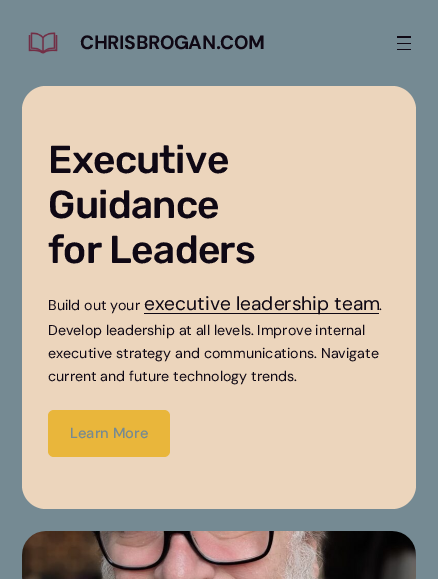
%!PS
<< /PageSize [438 579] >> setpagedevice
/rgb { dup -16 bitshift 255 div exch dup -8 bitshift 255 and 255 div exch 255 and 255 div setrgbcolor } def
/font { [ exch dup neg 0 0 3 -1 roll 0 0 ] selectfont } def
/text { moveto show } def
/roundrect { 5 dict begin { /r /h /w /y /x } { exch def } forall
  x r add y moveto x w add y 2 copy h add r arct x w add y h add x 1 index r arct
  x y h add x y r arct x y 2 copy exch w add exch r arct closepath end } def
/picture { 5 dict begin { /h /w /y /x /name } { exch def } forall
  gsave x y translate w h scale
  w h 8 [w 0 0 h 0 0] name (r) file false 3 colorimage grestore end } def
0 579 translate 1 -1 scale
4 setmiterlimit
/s1 { /DMSans-Regular 14.25 font 16#0F0814 rgb } def
/s2 { /DMSans-Regular 19.25 font 16#0F0814 rgb } def
/s3 { /DMSans-Medium 14.75 font 16#758A93 rgb } def
16#758A93 rgb
0 0 438 579 rectfill
(pic1.raw) 28 32 30 22 picture
/DMSans-Bold 19.25 font
16#0F0814 rgb
80 49 moveto -0.4 0 (CHRISBROGAN.COM) ashow
397 36 14 2 rectfill
397 43 14 1 rectfill
397 49 14 1 rectfill
16#ECD5BC rgb
22 86 394 423 24 roundrect fill
/Rubik-Medium 39 font
16#0F0814 rgb
48 173 moveto -0.75 0 (Executive) ashow
48 218 moveto -0.75 0 (Guidance) ashow
48 263 moveto -0.75 0 (for Leaders) ashow
s1
(Build out your) 48 310 text
144 313 235 1 rectfill
s2
(executive leadership team) 144 310 text
s1
(.) 379 310 text
(Develop leadership at all levels. Improve internal) 48 335 text
(executive strategy and communications. Navigate) 48 358 text
(current and future technology trends.) 48 381 text
16#E9B63B rgb
48 410 122 47 6 roundrect fill
s3
(Learn More) 70 438 text
(pic2.raw) 22 531 394 48 picture
showpage
